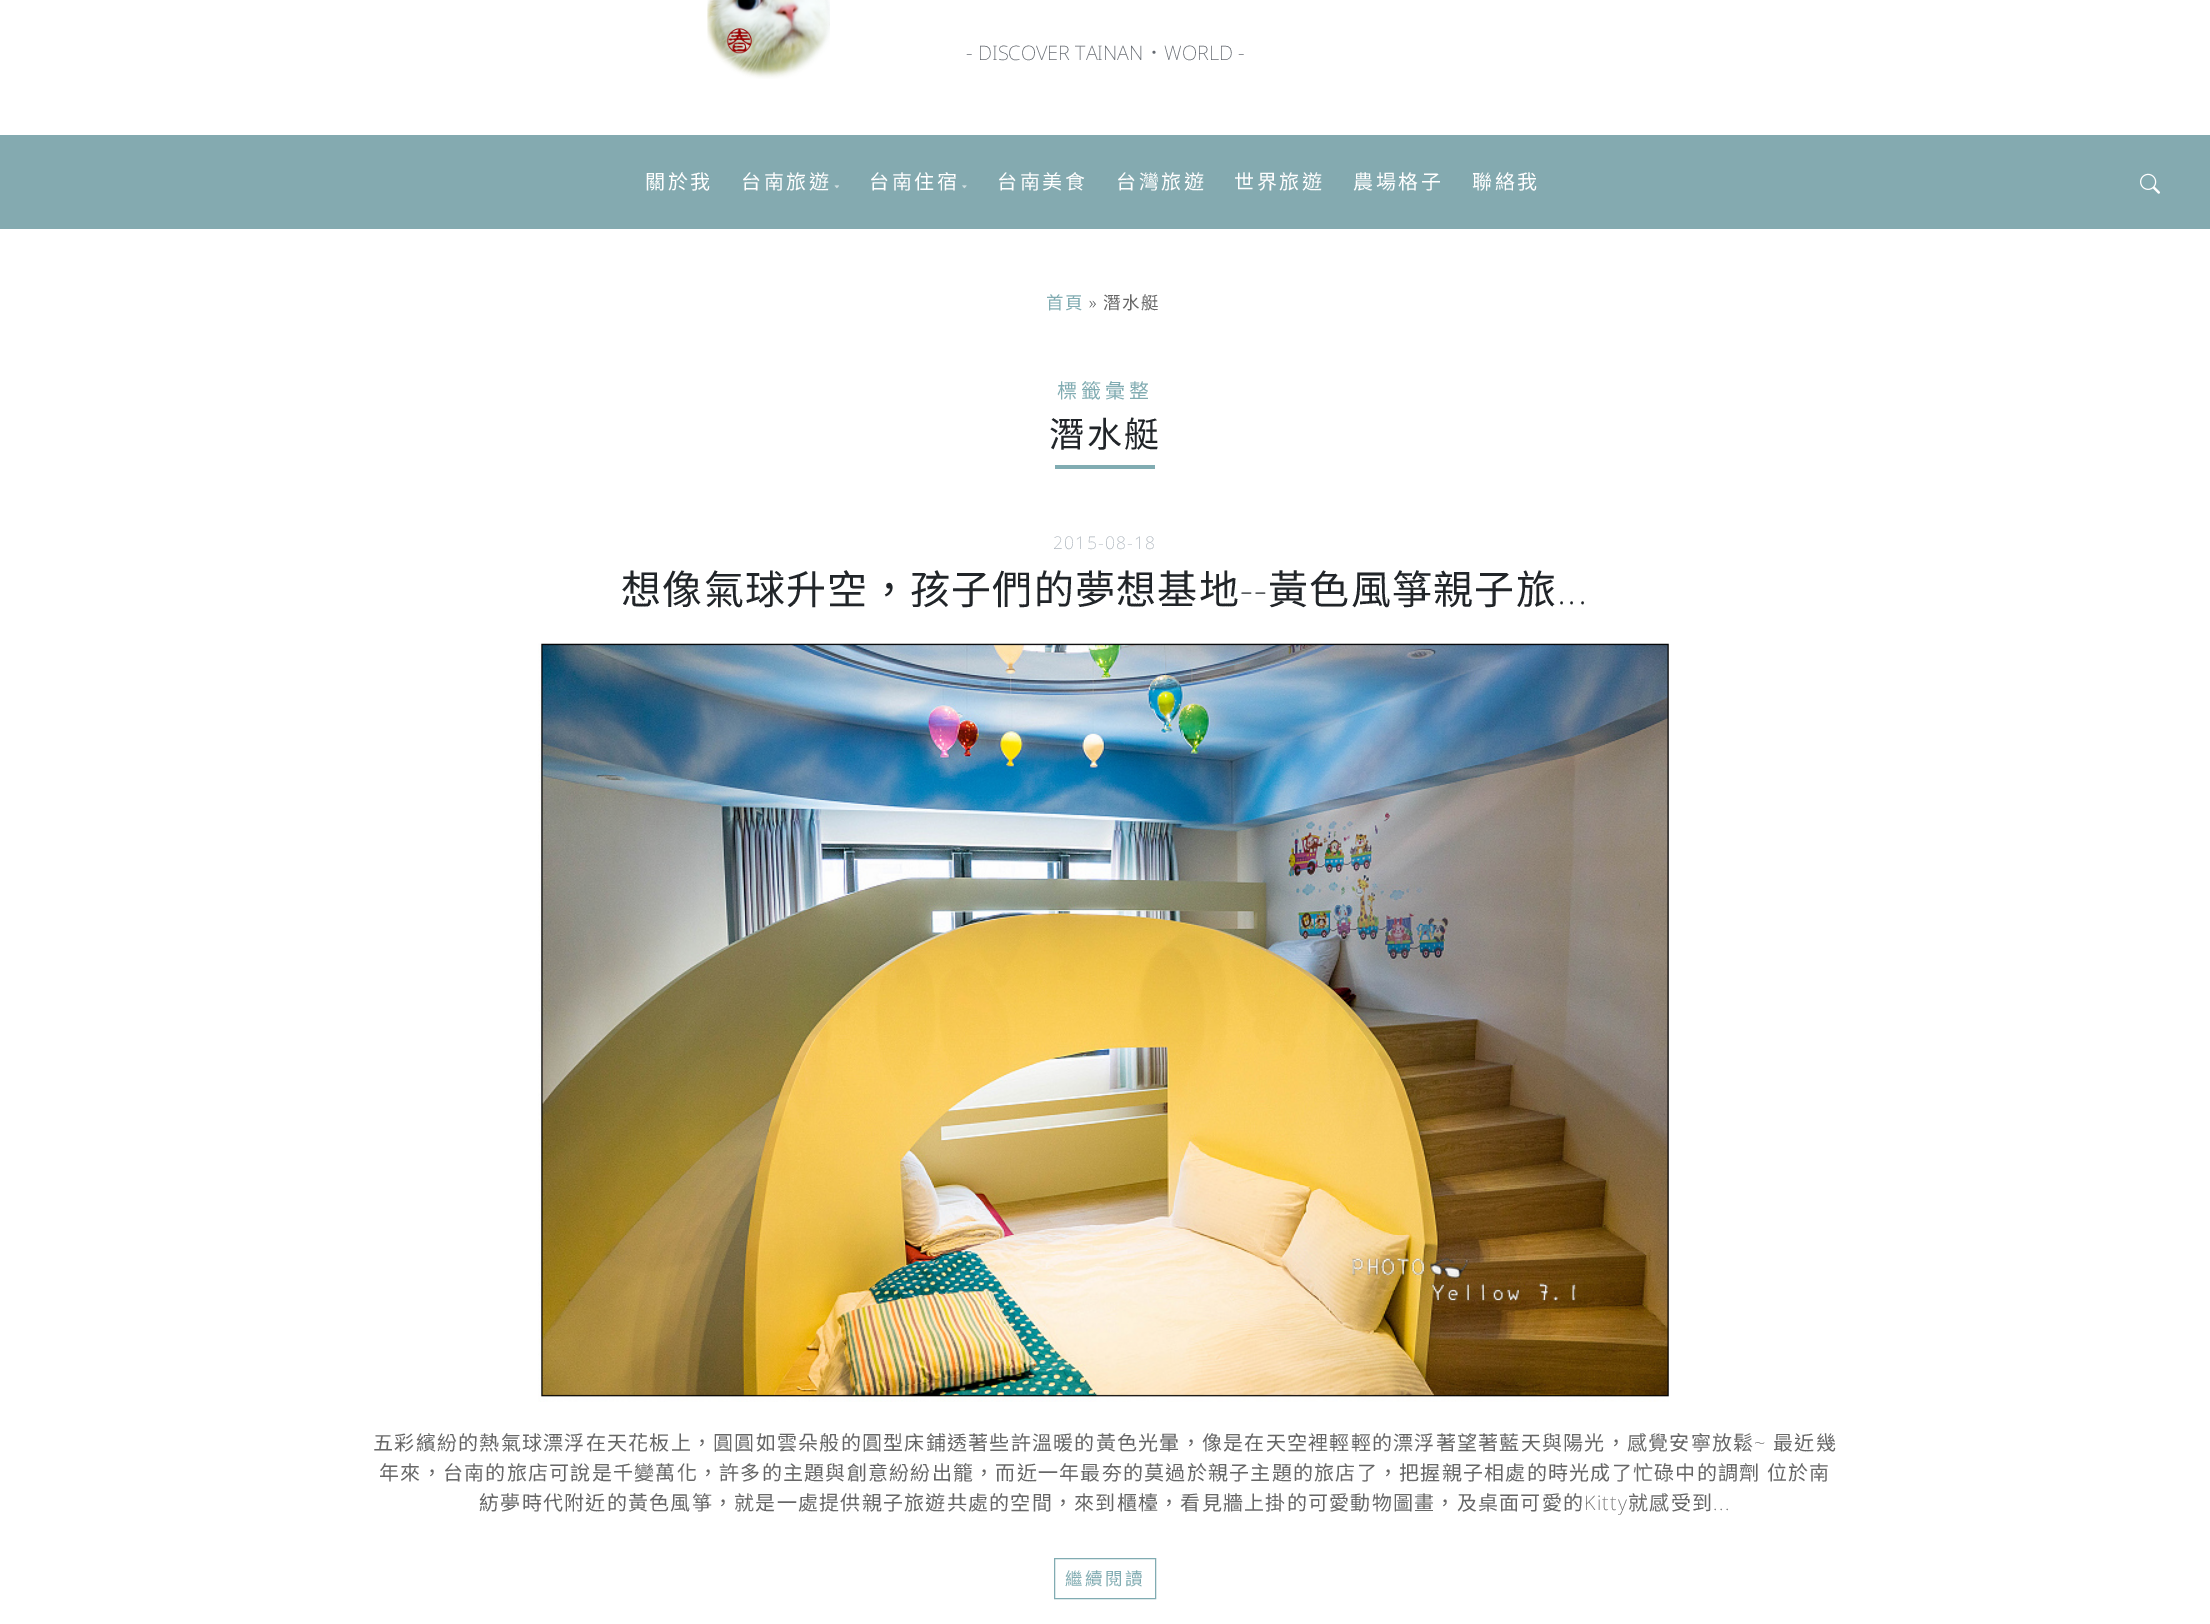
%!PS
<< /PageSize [2210 1624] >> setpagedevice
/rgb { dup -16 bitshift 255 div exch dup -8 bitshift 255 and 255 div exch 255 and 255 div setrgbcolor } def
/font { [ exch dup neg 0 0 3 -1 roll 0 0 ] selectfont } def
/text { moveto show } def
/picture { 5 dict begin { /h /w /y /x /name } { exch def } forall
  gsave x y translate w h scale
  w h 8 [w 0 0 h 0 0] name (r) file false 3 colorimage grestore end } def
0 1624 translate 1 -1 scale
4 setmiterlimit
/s1 { /NotoSans-ExtraLight 20 font 16#646970 rgb } def
/s2 { /NotoSansCJKTC-Regular 20 font 16#646970 rgb } def
16#FFFFFF rgb
0 0 2210 1624 rectfill
(pic1.raw) 707 0 123 79 picture
s1
(- DISCOVER TAINAN) 966 60 text
s2
(．) 1144 60 text
s1
(WORLD -) 1164 60 text
16#84AAB0 rgb
0 135 2210 94 rectfill
/NotoSansCJKTC-Regular 20 font
16#FFFFFF rgb
645 189 moveto 2.5 0 (關於我) ashow
741 189 moveto 2.5 0 (台南旅遊) ashow
(pic2.raw) 834 185 5 4 picture
869 189 moveto 2.5 0 (台南住宿) ashow
(pic3.raw) 962 185 5 4 picture
997 189 moveto 2.5 0 (台南美食) ashow
1116 189 moveto 2.5 0 (台灣旅遊) ashow
1234 189 moveto 2.5 0 (世界旅遊) ashow
1353 189 moveto 2.5 0 (農場格子) ashow
1472 189 moveto 2.5 0 (聯絡我) ashow
(pic4.raw) 2140 173 20 21 picture
/NotoSansCJKTC-Regular 17.5 font
16#81ACB2 rgb
1046 309 moveto 1.25 0 (首頁) ashow
/NotoSans-ExtraLight 17.5 font
16#212529 rgb
1089 309 moveto 1.25 0 (») ashow
/NotoSansCJKTC-Regular 17.5 font
16#666666 rgb
1103 309 moveto 1.25 0 (潛水艇) ashow
/NotoSansCJKTC-Regular 20 font
16#81ACB2 rgb
1057 398 moveto 4 0 (標籤彙整) ashow
/NotoSansCJKTC-Regular 35 font
16#212529 rgb
1049 447 moveto 2.5 0 (潛水艇) ashow
16#81ACB2 rgb
1055 465 100 4 rectfill
/NotoSans-ExtraLight 17.5 font
16#ADB5BD rgb
1053 549 moveto 1.25 0 (2015-08-18) ashow
/NotoSansCJKTC-Regular 40 font
16#212529 rgb
621 604 moveto 1.25 0 (想像氣球升空，孩子們的夢想基地) ashow
/NotoSans-ExtraLight 40 font
1240 604 moveto 1.25 0 (--) ashow
/NotoSansCJKTC-Regular 40 font
1268 604 moveto 1.25 0 (黃色風箏親子旅) ashow
/NotoSans-ExtraLight 40 font
1557 604 moveto 1.25 0 (...) ashow
(pic5.raw) 538 643 1131 759 picture
/NotoSansCJKTC-Regular 20 font
16#666666 rgb
373 1450 moveto 1.25 0 (五彩繽紛的熱氣球漂浮在天花板上，圓圓如雲朵般的圓型床鋪透著些許溫暖的黃色光暈，像是在天空裡輕輕的漂浮著望著藍天與陽光，感覺安寧放鬆) ashow
/NotoSans-ExtraLight 20 font
1754 1450 moveto 1.25 0 (~) ashow
/NotoSansCJKTC-Regular 20 font
1773 1450 moveto 1.25 0 (最近幾) ashow
379 1480 moveto 1 0 32 1.25 0 (年來，台南的旅店可說是千變萬化，許多的主題與創意紛紛出籠，而近一年最夯的莫過於親子主題的旅店了，把握親子相處的時光成了忙碌中的調劑 位於南) awidthshow
479 1510 moveto 1.25 0 (紡夢時代附近的黃色風箏，就是一處提供親子旅遊共處的空間，來到櫃檯，看見牆上掛的可愛動物圖畫，及桌面可愛的) ashow
/NotoSans-ExtraLight 20 font
1584 1510 moveto 1.25 0 (Kitty) ashow
/NotoSansCJKTC-Regular 20 font
1628 1510 moveto 1.25 0 (就感受到) ashow
/NotoSans-ExtraLight 20 font
1713 1510 moveto 1.25 0 (...) ashow
16#81ACB2 rgb
1054.5 1558.5 101 40 rectstroke
/NotoSansCJKTC-Regular 17.5 font
1065 1585 moveto 2.5 0 (繼續閱讀) ashow
showpage
